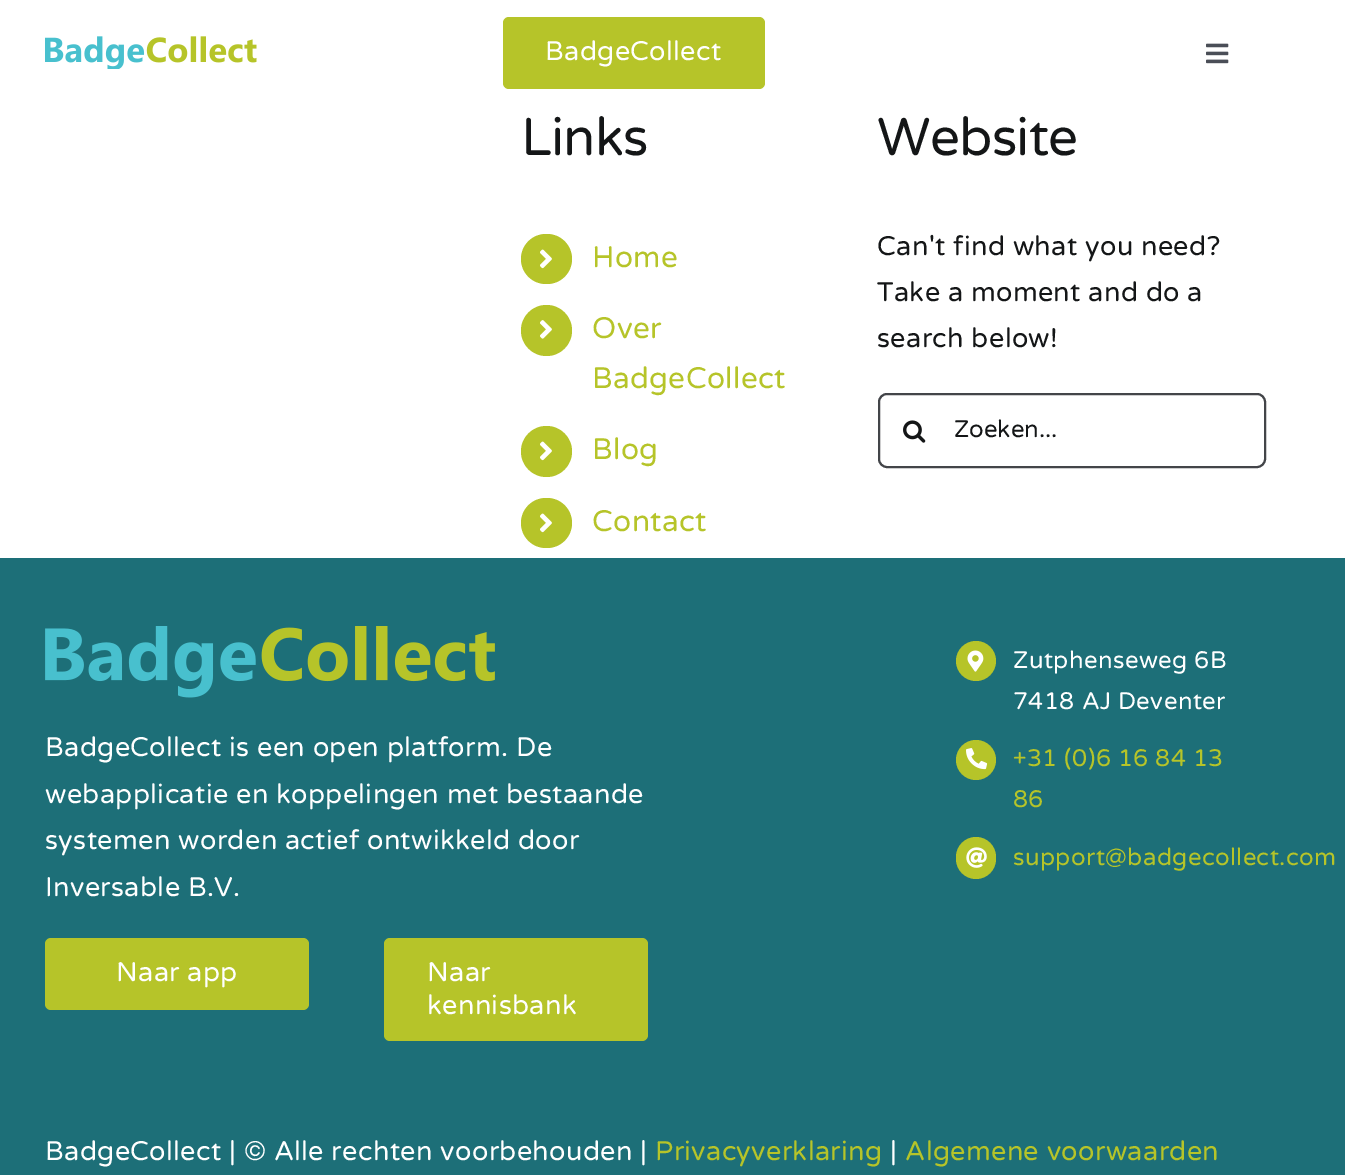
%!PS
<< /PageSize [1345 1175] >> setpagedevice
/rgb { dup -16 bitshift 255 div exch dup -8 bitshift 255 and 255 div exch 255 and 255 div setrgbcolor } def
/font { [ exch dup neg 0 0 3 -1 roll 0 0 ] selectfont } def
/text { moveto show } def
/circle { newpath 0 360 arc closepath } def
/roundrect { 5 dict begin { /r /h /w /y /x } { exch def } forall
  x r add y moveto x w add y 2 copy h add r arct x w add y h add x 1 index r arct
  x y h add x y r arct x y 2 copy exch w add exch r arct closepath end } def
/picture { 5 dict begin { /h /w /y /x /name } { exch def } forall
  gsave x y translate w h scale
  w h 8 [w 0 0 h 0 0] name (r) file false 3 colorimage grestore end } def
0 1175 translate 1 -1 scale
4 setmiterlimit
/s1 { /VarelaRound-Regular 24 font 16#141617 rgb } def
16#FFFFFF rgb
0 0 1345 1175 rectfill
(pic1.raw) 45 36 212 33 picture
16#B6C429 rgb
503 17 262 72 6 roundrect fill
/VarelaRound-Regular 27 font
16#FFFFFF rgb
545 60 moveto 0.4 0 (BadgeCollect) ashow
(pic2.raw) 1206 43 23 21 picture
/VarelaRound-Regular 53 font
16#141617 rgb
521 155 moveto -0.75 0 (Links) ashow
16#B6C429 rgb
521 234 51 50 25 roundrect fill
(pic3.raw) 540 249 12 20 picture
/VarelaRound-Regular 29.75 font
592 267 moveto 0.4 0 (Home) ashow
546.5 330.5 25.5 circle fill
(pic4.raw) 540 320 12 19 picture
592 338 moveto 0.4 0 (Over) ashow
592 388 moveto 0.4 0 (BadgeCollect) ashow
546.5 451.5 25.5 circle fill
(pic3.raw) 540 441 12 20 picture
592 459 moveto 0.4 0 (Blog) ashow
521 498 51 50 25 roundrect fill
(pic3.raw) 540 513 12 20 picture
592 531 moveto 0.4 0 (Contact) ashow
/VarelaRound-Regular 53 font
16#141617 rgb
877 155 moveto -0.75 0 (Website) ashow
/VarelaRound-Regular 27 font
877 255 moveto 0.4 0 (Can't find what you need?) ashow
877 301 moveto 0.4 0 (Take a moment and do a) ashow
877 347 moveto 0.4 0 (search below!) ashow
16#434549 rgb
2 setlinewidth
879 394 386 73 8 roundrect stroke
(pic5.raw) 903 420 23 23 picture
s1
(Zoeken...) 954 437 text
16#1D6F78 rgb
0 558 1345 617 rectfill
(pic6.raw) 45 626 450 72 picture
/VarelaRound-Regular 27 font
16#FFFFFF rgb
45 756 moveto 0.4 0 (BadgeCollect is een open platform. De) ashow
45 803 moveto 0.4 0 (webapplicatie en koppelingen met bestaande) ashow
45 849 moveto 0.4 0 (systemen worden actief ontwikkeld door) ashow
45 896 moveto 0.4 0 (Inversable B.V.) ashow
16#B6C429 rgb
45 938 264 72 6 roundrect fill
16#FFFFFF rgb
116 981 moveto 0.4 0 (Naar app) ashow
16#B6C429 rgb
384 938 264 103 6 roundrect fill
16#FFFFFF rgb
427 981 moveto 0.4 0 (Naar) ashow
427 1014 moveto 0.4 0 (kennisbank) ashow
16#B6C429 rgb
976 661 20 circle fill
(pic7.raw) 967 650 17 22 picture
/VarelaRound-Regular 24 font
16#FFFFFF rgb
1013 668 moveto 0.4 0 (Zutphenseweg 6B) ashow
1013 709 moveto 0.4 0 (7418 AJ Deventer) ashow
16#B6C429 rgb
976 760 20 circle fill
(pic8.raw) 966 748 22 22 picture
1013 766 moveto 0.4 0 (+31 \(0\)6 16 84 13) ashow
1013 807 moveto 0.4 0 (86) ashow
956 837 40 42 20 roundrect fill
(pic9.raw) 966 847 21 21 picture
1013 865 moveto 0.4 0 (support@badgecollect.com) ashow
/VarelaRound-Regular 27 font
16#FFFFFF rgb
45 1160 moveto 0.4 0 (BadgeCollect | © Alle rechten voorbehouden |) ashow
16#B6C429 rgb
655 1160 moveto 0.4 0 (Privacyverklaring) ashow
16#FFFFFF rgb
890 1160 moveto 0.4 0 (|) ashow
16#B6C429 rgb
905 1160 moveto 0.4 0 (Algemene voorwaarden) ashow
showpage
